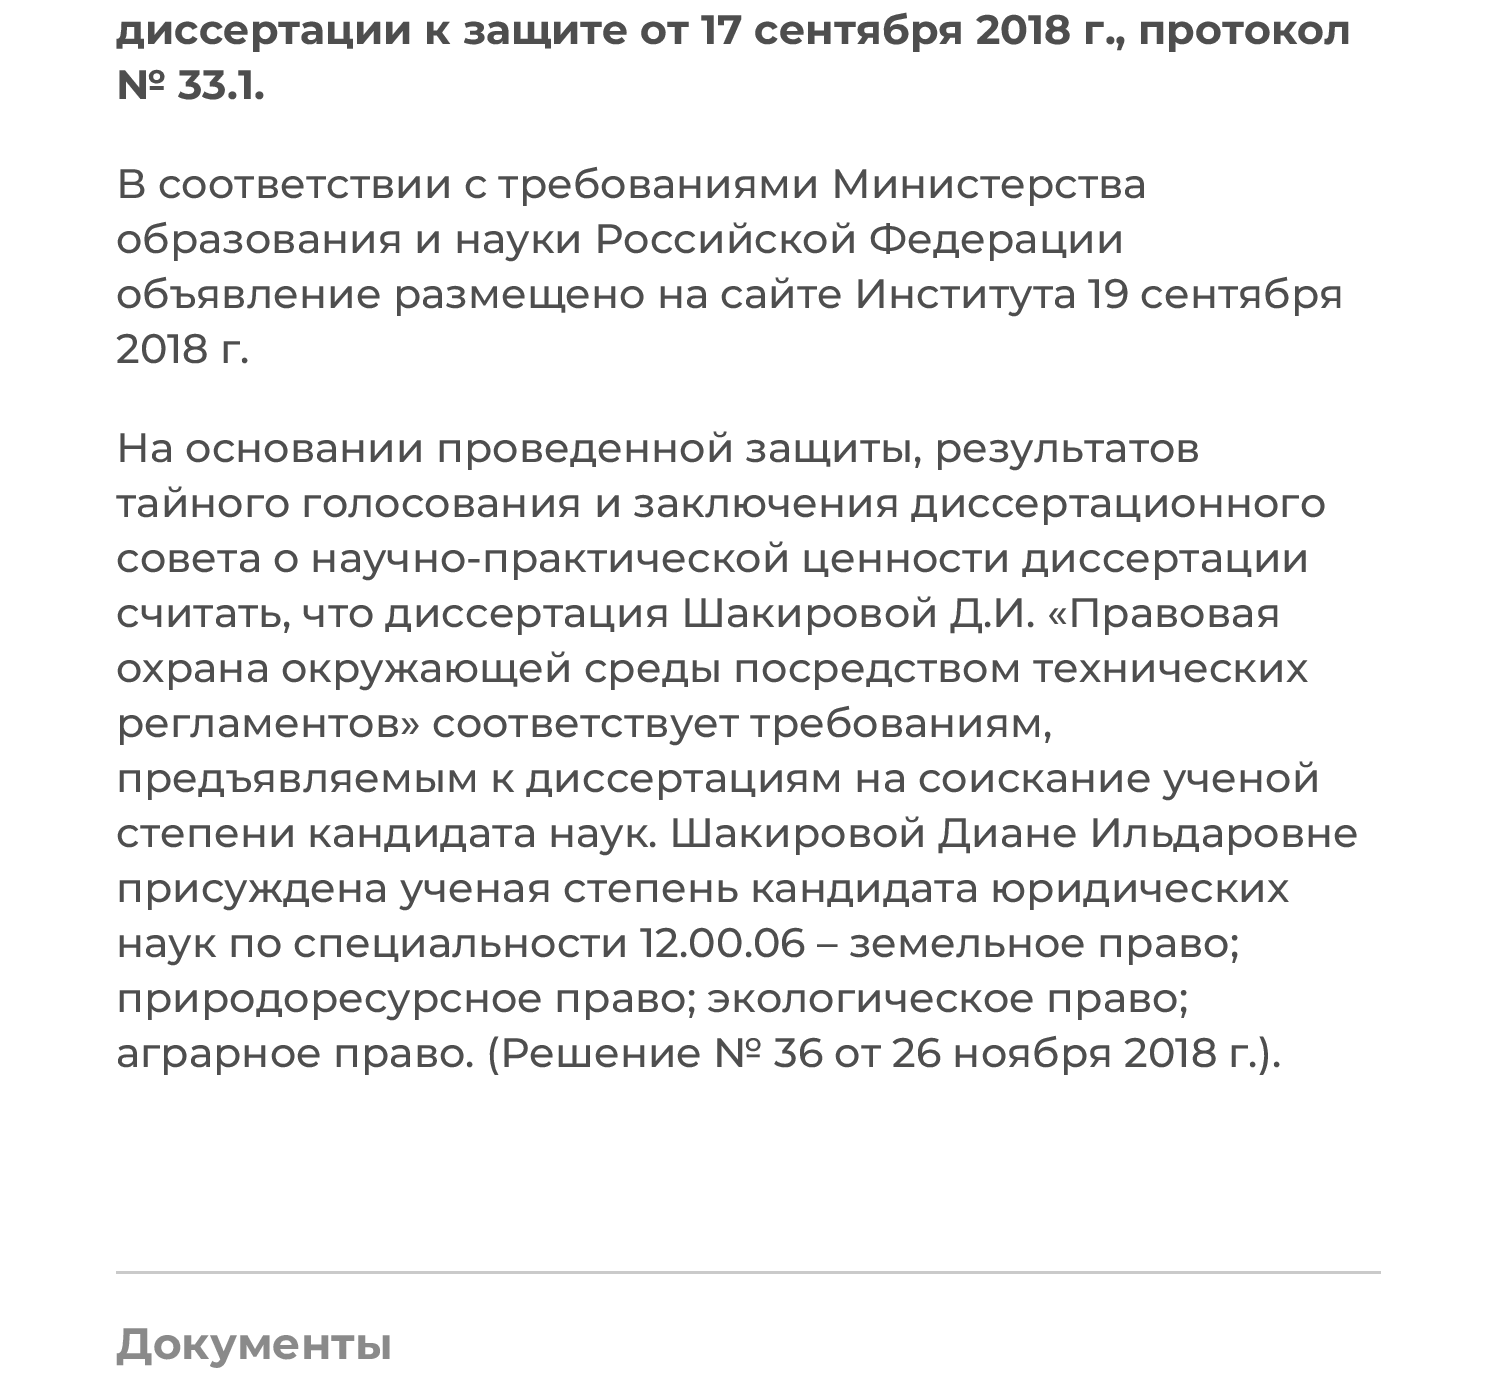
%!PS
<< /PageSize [1496 1394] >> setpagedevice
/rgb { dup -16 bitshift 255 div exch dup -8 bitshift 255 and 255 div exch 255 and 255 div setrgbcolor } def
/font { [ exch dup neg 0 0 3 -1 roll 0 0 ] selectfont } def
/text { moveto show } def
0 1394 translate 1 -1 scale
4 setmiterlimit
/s1 { /Montserrat-Bold 41.25 font 16#4E4E4E rgb } def
/s2 { /Montserrat-Medium 41.25 font 16#4E4E4E rgb } def
/s3 { /Montserrat-Bold 44 font 16#8A8A8A rgb } def
16#FFFFFF rgb
0 0 1496 1394 rectfill
s1
(диссертации к защите от 17 сентября 2018 г., протокол) 116 44 text
(№ 33.1.) 116 99 text
s2
(В соответствии с требованиями Министерства) 116 198 text
(образования и науки Российской Федерации) 116 253 text
(объявление размещено на сайте Института 19 сентября) 116 308 text
(2018 г.) 116 363 text
(На основании проведенной защиты, результатов) 116 462 text
(тайного голосования и заключения диссертационного) 116 517 text
(совета о научно-практической ценности диссертации) 116 572 text
(считать, что диссертация Шакировой Д.И. «Правовая) 116 627 text
(охрана окружающей среды посредством технических) 116 682 text
(регламентов») 116 737 text
(соответствует требованиям,) 432 737 text
(предъявляемым к диссертациям на соискание ученой) 116 792 text
(степени кандидата наук. Шакировой Диане Ильдаровне) 116 847 text
(присуждена ученая степень кандидата юридических) 116 902 text
(наук по специальности 12.00.06 – земельное право;) 116 957 text
(природоресурсное право; экологическое право;) 116 1012 text
(аграрное право. \(Решение № 36 от 26 ноября 2018 г.\).) 116 1067 text
16#CACACA rgb
116 1271 1265 3 rectfill
s3
(Документы) 116 1359 text
showpage
